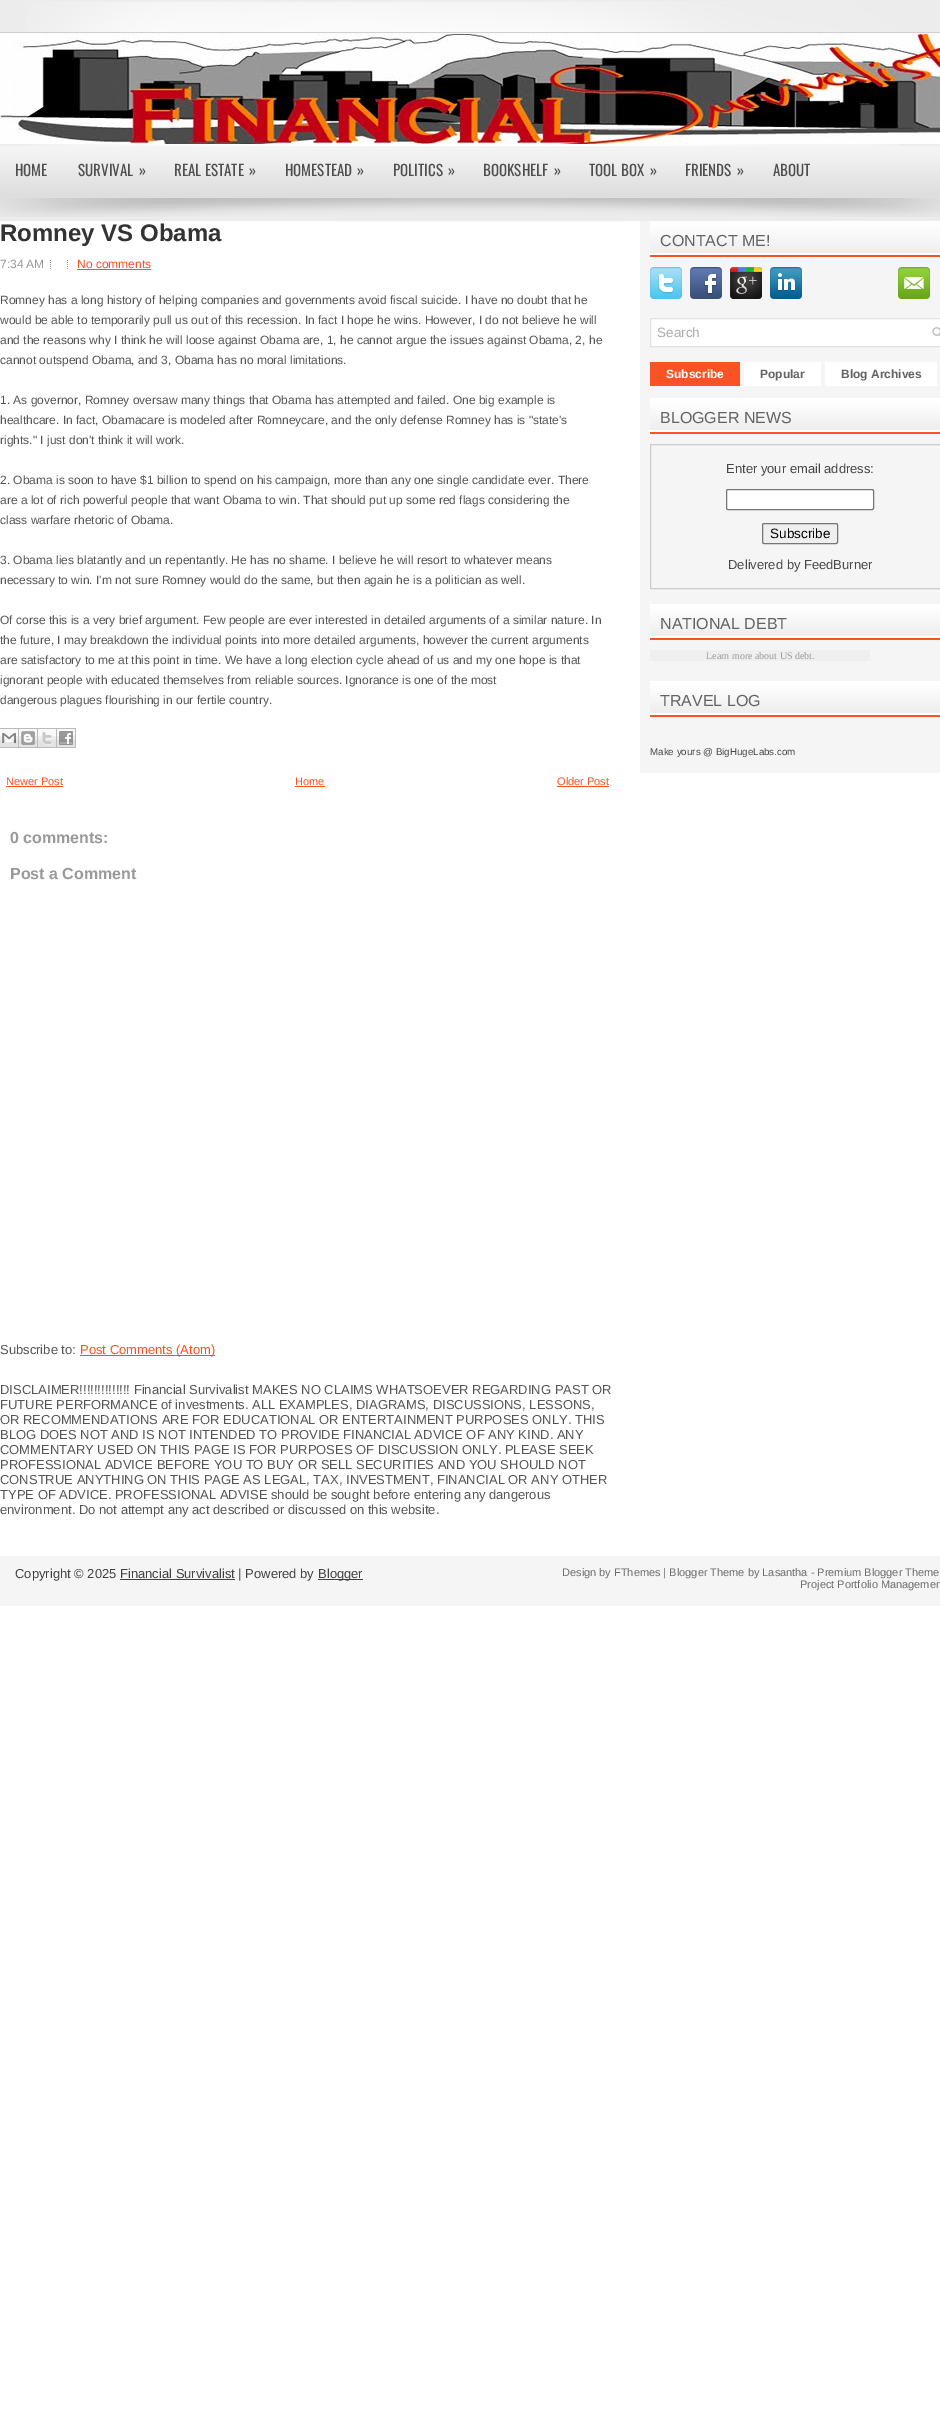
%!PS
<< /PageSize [940 2436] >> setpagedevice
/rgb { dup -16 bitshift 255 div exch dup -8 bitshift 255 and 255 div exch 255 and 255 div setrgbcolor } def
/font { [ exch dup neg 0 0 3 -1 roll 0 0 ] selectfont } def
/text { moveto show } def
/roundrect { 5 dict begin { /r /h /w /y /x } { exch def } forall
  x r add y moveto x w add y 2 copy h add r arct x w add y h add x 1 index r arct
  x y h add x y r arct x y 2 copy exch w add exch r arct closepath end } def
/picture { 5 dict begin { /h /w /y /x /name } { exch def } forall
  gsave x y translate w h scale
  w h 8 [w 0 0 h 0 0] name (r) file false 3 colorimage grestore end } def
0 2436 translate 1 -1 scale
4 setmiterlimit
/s1 { /Oswald-Regular 15 font 16#4F4F4F rgb } def
/s2 { /LiberationSans-Bold 24 font 16#333333 rgb } def
/s3 { /LiberationSans-Regular 12 font 16#999999 rgb } def
/s4 { /LiberationSans-Regular 12 font 16#FF4F1F rgb } def
/s5 { /LiberationSans-Regular 12 font 16#555555 rgb } def
/s6 { /LiberationSans-Regular 11 font 16#FF4F1F rgb } def
/s7 { /LiberationSans-Bold 16 font 16#999999 rgb } def
/s8 { /LiberationSans-Regular 13 font 16#555555 rgb } def
/s9 { /LiberationSans-Regular 13 font 16#FF4F1F rgb } def
/s10 { /LiberationSans-Regular 16 font 16#636363 rgb } def
/s11 { /LiberationSans-Regular 13.5 font 16#ACACAC rgb } def
/s12 { /LiberationSans-Bold 12 font 16#FFFFFF rgb } def
/s13 { /LiberationSans-Bold 12 font 16#636363 rgb } def
/s14 { /LiberationSans-Regular 13 font 16#474747 rgb } def
/s15 { /LiberationSans-Regular 13.5 font 16#000000 rgb } def
/s16 { /LiberationSerif-Regular 10 font 16#999999 rgb } def
/s17 { /LiberationSans-Regular 9.75 font 16#474747 rgb } def
/s18 { /LiberationSans-Regular 13 font 16#434141 rgb } def
/s19 { /LiberationSans-Regular 11 font 16#6D6D6D rgb } def
16#FFFFFF rgb
0 0 940 2436 rectfill
(pic1.raw) 0 0 940 221 picture
(pic2.raw) 0 198 940 19 picture
(pic3.raw) 25 2 874 144 picture
(pic4.raw) 0 32 940 2 picture
(pic5.raw) 0 34 940 110 picture
s1
(HOME) 15 176 text
(SURVIVAL) 78 176 text
(») 139 176 text
(REAL ESTATE) 174 176 text
(») 249 176 text
(HOMESTEAD) 285 176 text
(») 357 176 text
(POLITICS) 393 176 text
(») 448 176 text
(BOOKSHELF) 483 176 text
(») 554 176 text
(TOOL BOX) 589 176 text
(») 650 176 text
(FRIENDS) 685 176 text
(») 737 176 text
(ABOUT) 773 176 text
s2
(Romney VS Obama) 0 241 text
s3
(7:34 AM) 0 268 text
(pic6.raw) 50 260 1 9 picture
(pic6.raw) 67 260 1 9 picture
s4
(No comments) 77 268 text
77 269 74 1 rectfill
s5
(Romney has a long history of helping companies and governments avoid fiscal suicide. I have no doubt that he) 0 304 text
(would be able to temporarily pull us out of this recession. In fact I hope he wins. However, I do not believe he will) 0 324 text
(and the reasons why I think he will loose against Obama are, 1, he cannot argue the issues against Obama, 2, he) 0 344 text
(cannot outspend Obama, and 3, Obama has no moral limitations.) 0 364 text
(1. As governor, Romney oversaw many things that Obama has attempted and failed. One big example is) 0 404 text
(healthcare. In fact, Obamacare is modeled after Romneycare, and the only defense Romney has is "state's) 0 424 text
(rights." I just don't think it will work.) 0 444 text
(2. Obama is soon to have $1 billion to spend on his campaign, more than any one single candidate ever. There) 0 484 text
(are a lot of rich powerful people that want Obama to win. That should put up some red flags considering the) 0 504 text
(class warfare rhetoric of Obama.) 0 524 text
(3. Obama lies blatantly and un repentantly. He has no shame. I believe he will resort to whatever means) 0 564 text
(necessary to win. I'm not sure Romney would do the same, but then again he is a politician as well.) 0 584 text
(Of corse this is a very brief argument. Few people are ever interested in detailed arguments of a similar nature. In) 0 624 text
(the future, I may breakdown the individual points into more detailed arguments, however the current arguments) 0 644 text
(are satisfactory to me at this point in time. We have a long election cycle ahead of us and my one hope is that) 0 664 text
(ignorant people with educated themselves from reliable sources. Ignorance is one of the most) 0 684 text
(dangerous plagues flourishing in our fertile country.) 0 704 text
(pic7.raw) 0 728 19 20 picture
(pic8.raw) 19 728 19 20 picture
(pic9.raw) 38 728 19 20 picture
(pic10.raw) 57 728 19 20 picture
s6
(Newer Post) 6 785 text
6 786 57 1 rectfill
(Home) 295 785 text
295 786 30 1 rectfill
(Older Post) 557 785 text
557 786 52 1 rectfill
s7
(0 comments:) 10 843 text
(Post a Comment) 10 879 text
s8
(Subscribe to:) 0 1354 text
16#FF4F1F rgb
80 1355 135 1 rectfill
(Post Comments \(Atom\)) 80 1354 text
s8
(DISCLAIMER!!!!!!!!!!!!!! Financial Survivalist MAKES NO CLAIMS WHATSOEVER REGARDING PAST OR) 0 1394 text
(FUTURE PERFORMANCE of investments. ALL EXAMPLES, DIAGRAMS, DISCUSSIONS, LESSONS,) 0 1409 text
(OR RECOMMENDATIONS ARE FOR EDUCATIONAL OR ENTERTAINMENT PURPOSES ONLY. THIS) 0 1424 text
(BLOG DOES NOT AND IS NOT INTENDED TO PROVIDE FINANCIAL ADVICE OF ANY KIND. ANY) 0 1439 text
(COMMENTARY USED ON THIS PAGE IS FOR PURPOSES OF DISCUSSION ONLY. PLEASE SEEK) 0 1454 text
(PROFESSIONAL ADVICE BEFORE YOU TO BUY OR SELL SECURITIES AND YOU SHOULD NOT) 0 1469 text
(CONSTRUE ANYTHING ON THIS PAGE AS LEGAL, TAX, INVESTMENT, FINANCIAL OR ANY OTHER) 0 1484 text
(TYPE OF ADVICE. PROFESSIONAL ADVISE should be sought before entering any dangerous) 0 1499 text
(environment. Do not attempt any act described or discussed on this website.) 0 1514 text
16#F5F5F5 rgb
640 221 300 552 rectfill
(pic11.raw) 650 221 290 36 picture
s10
(CONTACT ME!) 660 246 text
(pic12.raw) 650 267 32 32 picture
(pic13.raw) 690 267 32 32 picture
(pic14.raw) 730 267 32 32 picture
(pic15.raw) 770 267 32 32 picture
(pic16.raw) 898 267 32 32 picture
16#FFFFFF rgb
651 319 289 27 rectfill
(pic17.raw) 932 327 8 9 picture
16#E1E1E1 rgb
650.5 318.5 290 28 rectstroke
s11
(Search) 657 337 text
16#F95225 rgb
650 362 90 24 rectfill
s12
(Subscribe) 666 378 text
744 362 77 24 rectfill
s13
(Popular) 760 378 text
16#FFFFFF rgb
825 362 112 24 rectfill
s13
(Blog Archives) 841 378 text
(pic11.raw) 650 398 290 36 picture
s10
(BLOGGER NEWS) 660 423 text
16#CCCCCC rgb
650.5 444.5 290 144 rectstroke
s14
(Enter your email address:) 726 473 text
16#FFFFFF rgb
726.5 489.5 147 20 1.5 roundrect gsave fill grestore
16#767676 rgb
stroke
16#EFEFEF rgb
762.5 523.5 75 20 1.5 roundrect gsave fill grestore
16#767676 rgb
stroke
s15
(Subscribe) 770 538 text
s14
(Delivered by FeedBurner) 728 569 text
(pic11.raw) 650 604 290 36 picture
s10
(NATIONAL DEBT) 660 629 text
16#EFEFEF rgb
650 650 220 11 rectfill
s16
(Learn more about US debt.) 706 659 text
(pic11.raw) 650 681 290 36 picture
s10
(TRAVEL LOG) 660 706 text
s17
(Make yours @ BigHugeLabs.com) 650 755 text
16#F5F5F5 rgb
0 1556 940 50 rectfill
s18
(Copyright © 2025 Financial Survivalist | Powered by) 15 1578 text
318 1579 45 1 rectfill
(Blogger) 318 1578 text
120 1579 115 1 rectfill
s19
(Design by FThemes | Blogger Theme by Lasantha - Premium Blogger Theme) 562 1576 text
(Project Portfolio Managemen) 800 1588 text
showpage
